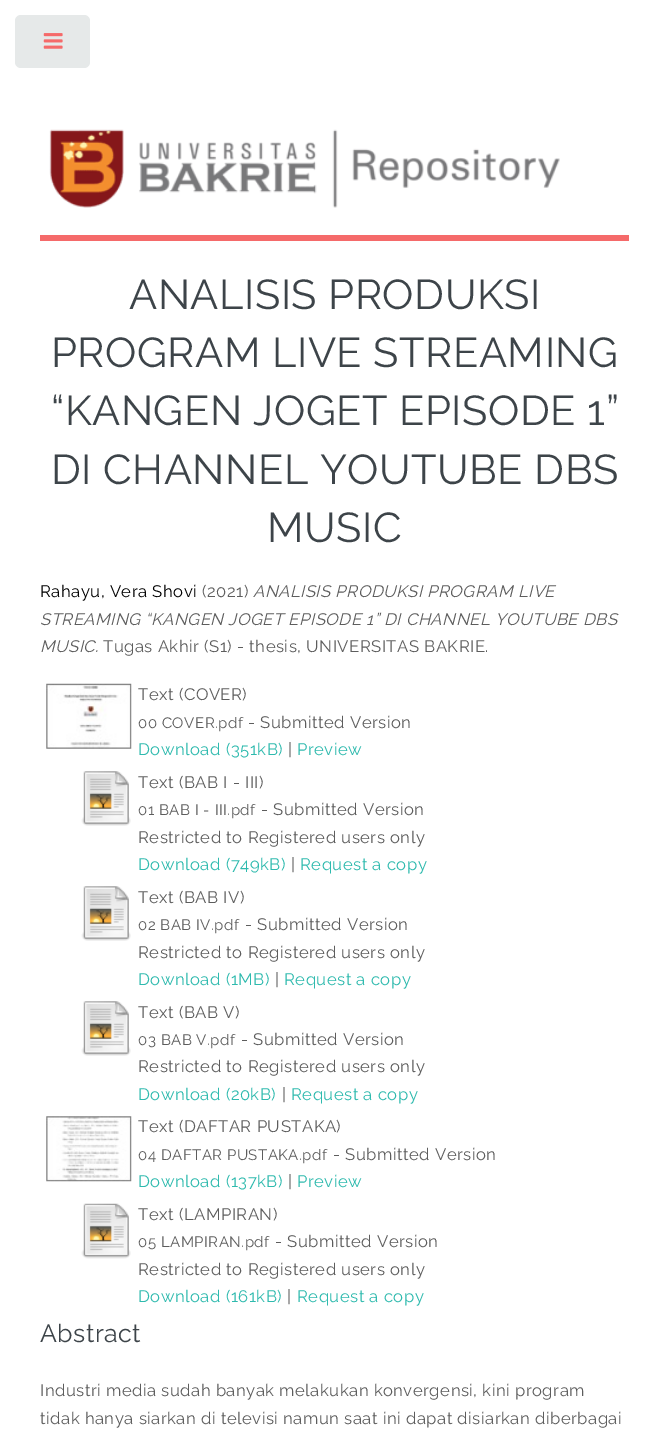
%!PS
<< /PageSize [668 1434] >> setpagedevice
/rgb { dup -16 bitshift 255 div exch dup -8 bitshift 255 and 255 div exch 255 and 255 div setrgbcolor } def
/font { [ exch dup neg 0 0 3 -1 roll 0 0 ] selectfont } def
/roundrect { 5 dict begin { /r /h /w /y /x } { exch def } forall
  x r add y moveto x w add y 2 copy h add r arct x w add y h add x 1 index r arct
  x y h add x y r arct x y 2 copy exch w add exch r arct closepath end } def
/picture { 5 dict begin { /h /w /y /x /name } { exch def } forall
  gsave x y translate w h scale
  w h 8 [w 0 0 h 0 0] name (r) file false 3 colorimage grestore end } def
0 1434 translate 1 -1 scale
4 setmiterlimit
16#FFFFFF rgb
0 0 668 1434 rectfill
16#E6E9E9 rgb
15 15 75 53 6 roundrect fill
(pic1.raw) 43 33 20 16 picture
16#F56A6A rgb
40 235 589 6 rectfill
(pic2.raw) 49 129 511 79 picture
/Raleway-Regular 41.7 font
16#3D4449 rgb
129 309 moveto 0.5 0 (ANALISIS PRODUKSI) ashow
51 367 moveto 0.5 0 (PROGRAM LIVE STREAMING) ashow
51 425 moveto 0.5 0 (“KANGEN JOGET EPISODE 1”) ashow
51 484 moveto 0.5 0 (DI CHANNEL YOUTUBE DBS) ashow
267 542 moveto 0.5 0 (MUSIC) ashow
/Raleway-Regular 16.65 font
16#000000 rgb
40 597 moveto 0.5 0 (Rahayu, Vera Shovi) ashow
16#5D5D5D rgb
202 597 moveto 0.5 0 (\(2021\)) ashow
/Raleway-Italic 16.65 font
253 597 moveto 0.5 0 (ANALISIS PRODUKSI PROGRAM LIVE) ashow
40 625 moveto 0.5 0 (STREAMING “KANGEN JOGET EPISODE 1” DI CHANNEL YOUTUBE DBS) ashow
40 652 moveto 0.5 0 (MUSIC.) ashow
/Raleway-Regular 16.65 font
103 652 moveto 0.5 0 (Tugas Akhir \(S1\) - thesis, UNIVERSITAS BAKRIE.) ashow
(pic3.raw) 46 683 86 66 picture
138 700 moveto 0.5 0 (Text \(COVER\)) ashow
/Raleway-Regular 15 font
138 728 moveto 0.5 0 (00 COVER.pdf) ashow
/Raleway-Regular 16.65 font
248 728 moveto 0.5 0 (- Submitted Version) ashow
16#2EBAAE rgb
138 755 moveto 0.5 0 (Download \(351kB\)) ashow
16#5D5D5D rgb
288 755 moveto 0.5 0 (|) ashow
16#2EBAAE rgb
297 755 moveto 0.5 0 (Preview) ashow
(pic4.raw) 81 771 50 55 picture
16#5D5D5D rgb
138 788 moveto 0.5 0 (Text \(BAB I - III\)) ashow
/Raleway-Regular 15 font
138 815 moveto 0.5 0 (01 BAB I - III.pdf) ashow
/Raleway-Regular 16.65 font
261 815 moveto 0.5 0 (- Submitted Version) ashow
138 843 moveto 0.5 0 (Restricted to Registered users only) ashow
16#2EBAAE rgb
138 870 moveto 0.5 0 (Download \(749kB\)) ashow
16#5D5D5D rgb
291 870 moveto 0.5 0 (|) ashow
16#2EBAAE rgb
300 870 moveto 0.5 0 (Request a copy) ashow
(pic4.raw) 81 886 50 55 picture
16#5D5D5D rgb
138 903 moveto 0.5 0 (Text \(BAB IV\)) ashow
/Raleway-Regular 15 font
138 930 moveto 0.5 0 (02 BAB IV.pdf) ashow
/Raleway-Regular 16.65 font
245 930 moveto 0.5 0 (- Submitted Version) ashow
138 958 moveto 0.5 0 (Restricted to Registered users only) ashow
16#2EBAAE rgb
138 985 moveto 0.5 0 (Download \(1MB\)) ashow
16#5D5D5D rgb
275 985 moveto 0.5 0 (|) ashow
16#2EBAAE rgb
284 985 moveto 0.5 0 (Request a copy) ashow
(pic4.raw) 81 1001 50 55 picture
16#5D5D5D rgb
138 1018 moveto 0.5 0 (Text \(BAB V\)) ashow
/Raleway-Regular 15 font
138 1045 moveto 0.5 0 (03 BAB V.pdf) ashow
/Raleway-Regular 16.65 font
241 1045 moveto 0.5 0 (- Submitted Version) ashow
138 1072 moveto 0.5 0 (Restricted to Registered users only) ashow
16#2EBAAE rgb
138 1100 moveto 0.5 0 (Download \(20kB\)) ashow
16#5D5D5D rgb
282 1100 moveto 0.5 0 (|) ashow
16#2EBAAE rgb
291 1100 moveto 0.5 0 (Request a copy) ashow
(pic5.raw) 46 1116 86 66 picture
16#5D5D5D rgb
138 1132 moveto 0.5 0 (Text \(DAFTAR PUSTAKA\)) ashow
/Raleway-Regular 15 font
138 1160 moveto 0.5 0 (04 DAFTAR PUSTAKA.pdf) ashow
/Raleway-Regular 16.65 font
333 1160 moveto 0.5 0 (- Submitted Version) ashow
16#2EBAAE rgb
138 1187 moveto 0.5 0 (Download \(137kB\)) ashow
16#5D5D5D rgb
288 1187 moveto 0.5 0 (|) ashow
16#2EBAAE rgb
297 1187 moveto 0.5 0 (Preview) ashow
(pic6.raw) 81 1203 50 56 picture
16#5D5D5D rgb
138 1220 moveto 0.5 0 (Text \(LAMPIRAN\)) ashow
/Raleway-Regular 15 font
138 1247 moveto 0.5 0 (05 LAMPIRAN.pdf) ashow
/Raleway-Regular 16.65 font
275 1247 moveto 0.5 0 (- Submitted Version) ashow
138 1275 moveto 0.5 0 (Restricted to Registered users only) ashow
16#2EBAAE rgb
138 1302 moveto 0.5 0 (Download \(161kB\)) ashow
16#5D5D5D rgb
287 1302 moveto 0.5 0 (|) ashow
16#2EBAAE rgb
297 1302 moveto 0.5 0 (Request a copy) ashow
/Raleway-Regular 25 font
16#3D4449 rgb
40 1342 moveto 0.5 0 (Abstract) ashow
/Raleway-Regular 16.65 font
16#5D5D5D rgb
40 1396 moveto 0.5 0 (Industri media sudah banyak melakukan konvergensi, kini program) ashow
40 1424 moveto 0.5 0 (tidak hanya siarkan di televisi namun saat ini dapat disiarkan diberbagai) ashow
showpage
